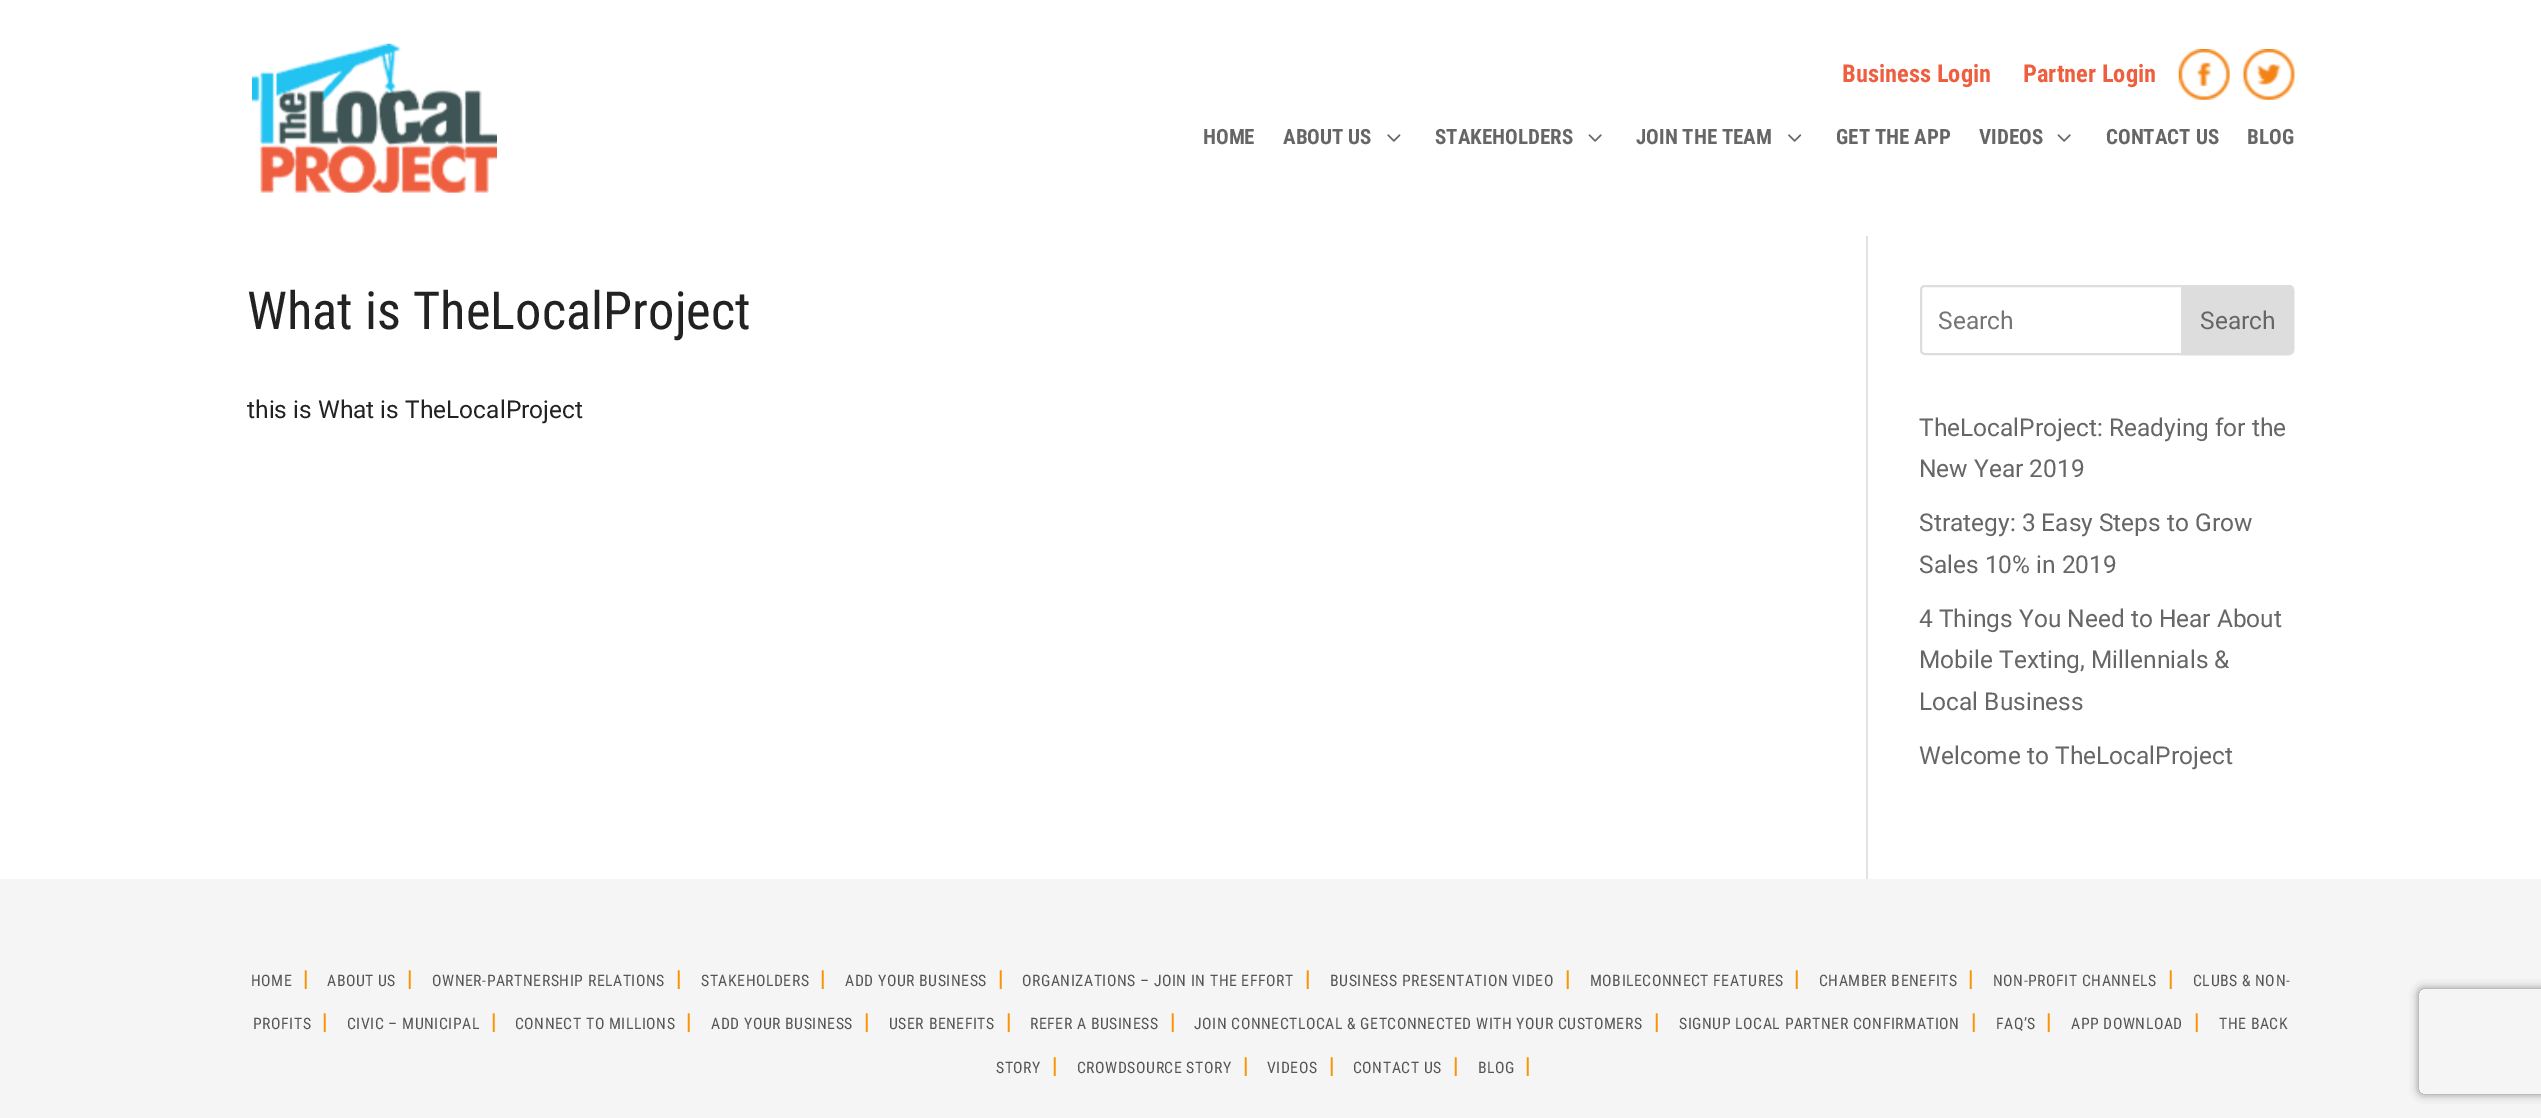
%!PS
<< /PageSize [2541 1118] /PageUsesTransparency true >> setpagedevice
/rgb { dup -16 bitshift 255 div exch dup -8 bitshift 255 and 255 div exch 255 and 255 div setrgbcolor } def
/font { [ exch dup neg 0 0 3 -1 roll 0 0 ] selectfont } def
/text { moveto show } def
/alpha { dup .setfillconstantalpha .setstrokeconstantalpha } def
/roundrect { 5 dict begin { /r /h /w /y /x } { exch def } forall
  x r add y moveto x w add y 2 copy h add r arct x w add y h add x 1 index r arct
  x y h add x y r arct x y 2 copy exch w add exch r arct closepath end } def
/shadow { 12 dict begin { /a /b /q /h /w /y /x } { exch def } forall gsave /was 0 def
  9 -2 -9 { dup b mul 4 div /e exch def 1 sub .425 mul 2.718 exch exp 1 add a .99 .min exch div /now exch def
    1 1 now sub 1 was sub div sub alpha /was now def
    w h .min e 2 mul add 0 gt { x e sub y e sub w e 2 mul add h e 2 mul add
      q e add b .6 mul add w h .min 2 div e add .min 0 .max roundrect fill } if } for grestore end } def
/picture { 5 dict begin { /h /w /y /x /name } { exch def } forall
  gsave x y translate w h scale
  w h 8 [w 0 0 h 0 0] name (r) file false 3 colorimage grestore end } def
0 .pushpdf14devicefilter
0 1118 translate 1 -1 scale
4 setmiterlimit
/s1 { /RobotoCondensed-Bold 24.5 font 16#EE5F3F rgb } def
/s2 { /RobotoCondensed-Bold 21 font 16#666666 rgb } def
/s3 { /RobotoCondensed-Regular 52.5 font 16#222222 rgb } def
/s4 { /Roboto-Regular 24.5 font 16#222222 rgb } def
/s5 { /Roboto-Regular 24.5 font 16#757575 rgb } def
/s6 { /Roboto-Regular 24.5 font 16#666666 rgb } def
/s7 { /Roboto-Bold 22 font 16#F89406 rgb } def
16#FFFFFF rgb
0 0 2541 1118 rectfill
(pic1.raw) 252 43 245 150 picture
s1
(Business Login) 1842 82 text
(Partner Login) 2023 82 text
(pic2.raw) 2178 49 52 51 picture
(pic3.raw) 2242 49 53 51 picture
s2
(HOME) 1203 144 text
(ABOUT US) 1283 144 text
(pic4.raw) 1387 134 14 8 picture
(STAKEHOLDERS) 1435 144 text
(pic5.raw) 1588 134 14 8 picture
(JOIN THE TEAM) 1636 144 text
(pic6.raw) 1788 134 14 8 picture
(GET THE APP) 1836 144 text
(VIDEOS) 1979 144 text
(pic5.raw) 2057 134 14 8 picture
(CONTACT US) 2106 144 text
(BLOG) 2247 144 text
16#E2E2E2 rgb
1866 236 2 643 rectfill
s3
(What is TheLocalProject) 247 329 text
s4
(this is What is TheLocalProject) 247 418 text
16#DDDDDD rgb
2 setlinewidth
1921 286 372 68 4 roundrect stroke
s5
(Search) 1938 329 text
16#DDDDDD rgb
2182 286 moveto 2289 286 lineto 2291 286 2293 288 2293 290 curveto 2293 350 lineto 2293 352 2291 354 2289 354 curveto 2182 354 lineto closepath gsave fill grestore
stroke
s6
(Search) 2200 329 text
(TheLocalProject: Readying for the) 1919 436 text
(New Year 2019) 1919 477 text
(Strategy: 3 Easy Steps to Grow) 1919 531 text
(Sales 10% in 2019) 1919 573 text
(4 Things You Need to Hear About) 1919 627 text
(Mobile Texting, Millennials &) 1919 668 text
(Local Business) 1919 710 text
(Welcome to TheLocalProject) 1919 764 text
16#F5F5F5 rgb
0 879 2541 239 rectfill
/RobotoCondensed-Regular 15.75 font
16#555555 rgb
251 986 moveto 0.55 0 (HOME) ashow
s7
(|) 303 986 text
/RobotoCondensed-Regular 15.75 font
16#555555 rgb
327 986 moveto 0.55 0 (ABOUT US) ashow
s7
(|) 407 986 text
/RobotoCondensed-Regular 15.75 font
16#555555 rgb
432 986 moveto 0.55 0 (OWNER-PARTNERSHIP RELATIONS) ashow
s7
(|) 676 986 text
/RobotoCondensed-Regular 15.75 font
16#555555 rgb
701 986 moveto 0.55 0 (STAKEHOLDERS) ashow
s7
(|) 820 986 text
/RobotoCondensed-Regular 15.75 font
16#555555 rgb
845 986 moveto 0.55 0 (ADD YOUR BUSINESS) ashow
s7
(|) 998 986 text
/RobotoCondensed-Regular 15.75 font
16#555555 rgb
1022 986 moveto 0.55 0 (ORGANIZATIONS – JOIN IN THE EFFORT) ashow
s7
(|) 1305 986 text
/RobotoCondensed-Regular 15.75 font
16#555555 rgb
1330 986 moveto 0.55 0 (BUSINESS PRESENTATION VIDEO) ashow
s7
(|) 1565 986 text
/RobotoCondensed-Regular 15.75 font
16#555555 rgb
1590 986 moveto 0.55 0 (MOBILECONNECT FEATURES) ashow
s7
(|) 1794 986 text
/RobotoCondensed-Regular 15.75 font
16#555555 rgb
1819 986 moveto 0.55 0 (CHAMBER BENEFITS) ashow
s7
(|) 1968 986 text
/RobotoCondensed-Regular 15.75 font
16#555555 rgb
1993 986 moveto 0.55 0 (NON-PROFIT CHANNELS) ashow
s7
(|) 2168 986 text
/RobotoCondensed-Regular 15.75 font
16#555555 rgb
2193 986 moveto 0.55 0 (CLUBS & NON-) ashow
253 1029 moveto 0.55 0 (PROFITS) ashow
s7
(|) 322 1029 text
/RobotoCondensed-Regular 15.75 font
16#555555 rgb
347 1029 moveto 0.55 0 (CIVIC – MUNICIPAL) ashow
s7
(|) 491 1029 text
/RobotoCondensed-Regular 15.75 font
16#555555 rgb
515 1029 moveto 0.55 0 (CONNECT TO MILLIONS) ashow
s7
(|) 686 1029 text
/RobotoCondensed-Regular 15.75 font
16#555555 rgb
711 1029 moveto 0.55 0 (ADD YOUR BUSINESS) ashow
s7
(|) 864 1029 text
/RobotoCondensed-Regular 15.75 font
16#555555 rgb
889 1029 moveto 0.55 0 (USER BENEFITS) ashow
s7
(|) 1006 1029 text
/RobotoCondensed-Regular 15.75 font
16#555555 rgb
1030 1029 moveto 0.55 0 (REFER A BUSINESS) ashow
s7
(|) 1170 1029 text
/RobotoCondensed-Regular 15.75 font
16#555555 rgb
1194 1029 moveto 0.55 0 (JOIN CONNECTLOCAL & GETCONNECTED WITH YOUR CUSTOMERS) ashow
s7
(|) 1654 1029 text
/RobotoCondensed-Regular 15.75 font
16#555555 rgb
1679 1029 moveto 0.55 0 (SIGNUP LOCAL PARTNER CONFIRMATION) ashow
s7
(|) 1971 1029 text
/RobotoCondensed-Regular 15.75 font
16#555555 rgb
1996 1029 moveto 0.55 0 (FAQ’S) ashow
s7
(|) 2046 1029 text
/RobotoCondensed-Regular 15.75 font
16#555555 rgb
2071 1029 moveto 0.55 0 (APP DOWNLOAD) ashow
s7
(|) 2194 1029 text
/RobotoCondensed-Regular 15.75 font
16#555555 rgb
2219 1029 moveto 0.55 0 (THE BACK) ashow
996 1073 moveto 0.55 0 (STORY) ashow
s7
(|) 1052 1073 text
/RobotoCondensed-Regular 15.75 font
16#555555 rgb
1077 1073 moveto 0.55 0 (CROWDSOURCE STORY) ashow
s7
(|) 1243 1073 text
/RobotoCondensed-Regular 15.75 font
16#555555 rgb
1267 1073 moveto 0.55 0 (VIDEOS) ashow
s7
(|) 1329 1073 text
/RobotoCondensed-Regular 15.75 font
16#555555 rgb
1353 1073 moveto 0.55 0 (CONTACT US) ashow
s7
(|) 1453 1073 text
/RobotoCondensed-Regular 15.75 font
16#555555 rgb
1478 1073 moveto 0.55 0 (BLOG) ashow
s7
(|) 1525 1073 text
gsave
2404 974 moveto 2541 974 lineto 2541 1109 lineto 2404 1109 lineto closepath 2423 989 moveto 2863 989 lineto 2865 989 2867 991 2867 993 curveto 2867 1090 lineto 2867 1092 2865 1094 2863 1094 curveto 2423 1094 lineto 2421 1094 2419 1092 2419 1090 curveto 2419 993 lineto 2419 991 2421 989 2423 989 curveto closepath eoclip newpath
16#808080 rgb
2419 989 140 105 4 4.5 1 shadow
grestore
.poppdf14devicefilter showpage
